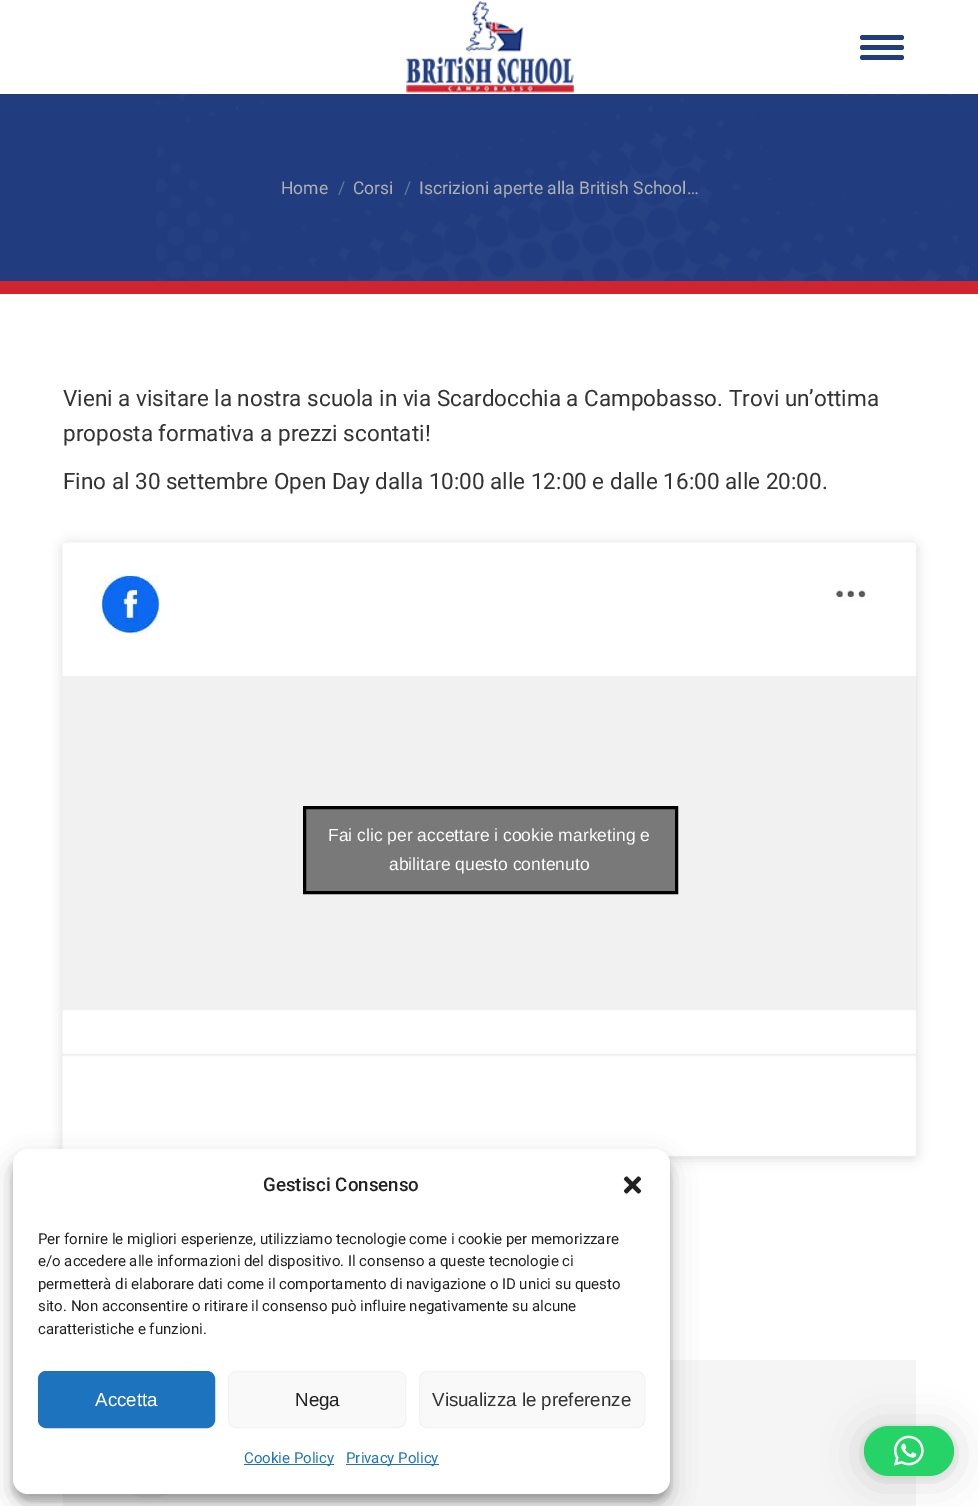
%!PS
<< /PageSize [978 1506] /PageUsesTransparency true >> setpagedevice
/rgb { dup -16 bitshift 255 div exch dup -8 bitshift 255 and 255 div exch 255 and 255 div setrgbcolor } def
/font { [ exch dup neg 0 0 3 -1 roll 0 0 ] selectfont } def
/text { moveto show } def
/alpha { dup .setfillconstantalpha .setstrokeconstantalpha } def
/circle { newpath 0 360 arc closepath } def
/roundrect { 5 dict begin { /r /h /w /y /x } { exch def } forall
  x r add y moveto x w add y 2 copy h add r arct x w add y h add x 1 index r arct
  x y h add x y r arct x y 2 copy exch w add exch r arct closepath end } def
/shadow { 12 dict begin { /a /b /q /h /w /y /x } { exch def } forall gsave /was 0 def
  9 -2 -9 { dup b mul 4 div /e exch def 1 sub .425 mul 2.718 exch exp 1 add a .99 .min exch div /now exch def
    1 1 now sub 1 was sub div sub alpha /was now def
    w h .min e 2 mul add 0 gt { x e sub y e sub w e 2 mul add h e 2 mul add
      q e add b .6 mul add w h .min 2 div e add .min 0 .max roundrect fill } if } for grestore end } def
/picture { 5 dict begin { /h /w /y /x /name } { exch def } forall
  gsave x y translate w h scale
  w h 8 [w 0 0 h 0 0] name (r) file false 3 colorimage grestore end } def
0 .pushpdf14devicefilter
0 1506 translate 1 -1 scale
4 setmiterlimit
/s1 { /Roboto-Regular 17.5 font 16#ADAFB3 rgb } def
/s2 { /Roboto-Regular 17.5 font 16#687699 rgb } def
/s3 { /Roboto-Regular 22.5 font 16#333333 rgb } def
/s4 { /LiberationSans-Regular 17.5 font 16#FFFFFF rgb } def
/s5 { /Roboto-Medium 18.75 font 16#222222 rgb } def
/s6 { /Roboto-Regular 15 font 16#222222 rgb } def
/s7 { /LiberationSans-Regular 18.75 font 16#FFFFFF rgb } def
/s8 { /LiberationSans-Regular 18.75 font 16#222222 rgb } def
/s9 { /LiberationSans-Regular 18.75 font 16#333333 rgb } def
/s10 { /Roboto-Regular 15 font 16#1E73BE rgb } def
16#FFFFFF rgb
0 0 978 1506 rectfill
16#223D7F rgb
0 94 978 187 rectfill
(pic2.raw) 157 94 812 187 picture
16#000000 rgb
-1 -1 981 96 0 9.5 0.07 shadow
16#FFFFFF rgb
0 0 978 94 rectfill
(pic1.raw) 406 1 168 92 picture
16#223D7F rgb
860 35 44 5 2.5 roundrect fill
860 45 44 5 2.5 roundrect fill
860 55 44 5 2.5 roundrect fill
16#D02531 rgb
0 281 978 13 rectfill
s1
(Home) 281 194 text
s2
(/) 338 194 text
s1
(Corsi) 353 194 text
s2
(/) 404 194 text
s1
(Iscrizioni aperte alla British School…) 419 194 text
s3
(Vieni a visitare la nostra scuola in via Scardocchia a Campobasso. Trovi un’ottima) 63 406 text
(proposta formativa a prezzi scontati!) 63 441 text
(Fino al 30 settembre Open Day dalla 10:00 alle 12:00 e dalle 16:00 alle 20:00.) 63 489 text
16#000000 rgb
63 544 853 614 4 6 0.15 shadow
63 543 853 613 4 0.5 0.5 shadow
(pic3.raw) 62 542 855 615 picture
16#797979 rgb
304.5 807.5 moveto 676.5 807.5 lineto 676.5 892.5 lineto 304.5 892.5 lineto closepath gsave fill grestore
16#000000 rgb
3 setlinewidth
stroke
s4
(Fai clic per accettare i cookie marketing e) 328 841 text
(abilitare questo contenuto) 389 870 text
16#F5F5F5 rgb
63 1360 853 146 rectfill
16#EBEBEB rgb
150 1448 50 circle fill
16#000000 rgb
13 1156 657 345 15 4 0.23 shadow
13 1161 657 345 15 12.5 0.19 shadow
16#FFFFFF rgb
13 1149 657 345 15 roundrect fill
s5
(Gestisci Consenso) 263 1191 text
(pic4.raw) 623 1176 19 18 picture
s6
(Per fornire le migliori esperienze, utilizziamo tecnologie come i cookie per memorizzare) 38 1244 text
(e/o accedere alle informazioni del dispositivo. Il consenso a queste tecnologie ci) 38 1266 text
(permetterà di elaborare dati come il comportamento di navigazione o ID unici su questo) 38 1289 text
(sito. Non acconsentire o ritirare il consenso può influire negativamente su alcune) 38 1311 text
(caratteristiche e funzioni.) 38 1334 text
16#1E73BE rgb
38.5 1371.5 176 56 7.5 roundrect gsave fill grestore
1 setlinewidth
stroke
s7
(Accetta) 95 1406 text
16#F9F9F9 rgb
228.5 1371.5 177 56 7.5 roundrect gsave fill grestore
16#F2F2F2 rgb
stroke
s8
(Nega) 295 1406 text
16#F9F9F9 rgb
419.5 1371.5 225 56 7.5 roundrect gsave fill grestore
16#F2F2F2 rgb
stroke
s9
(Visualizza le preferenze) 432 1406 text
16#1E73BE rgb
244 1464 90 1 rectfill
s10
(Cookie Policy) 244 1463 text
346 1464 93 1 rectfill
(Privacy Policy) 346 1463 text
16#000000 rgb
864 1429 90 50 25 20 0.16 shadow
864 1428 90 50 25 4 0.06 shadow
16#25D366 rgb
864 1426 90 50 25 roundrect fill
(pic5.raw) 893 1435 31 31 picture
.poppdf14devicefilter showpage
